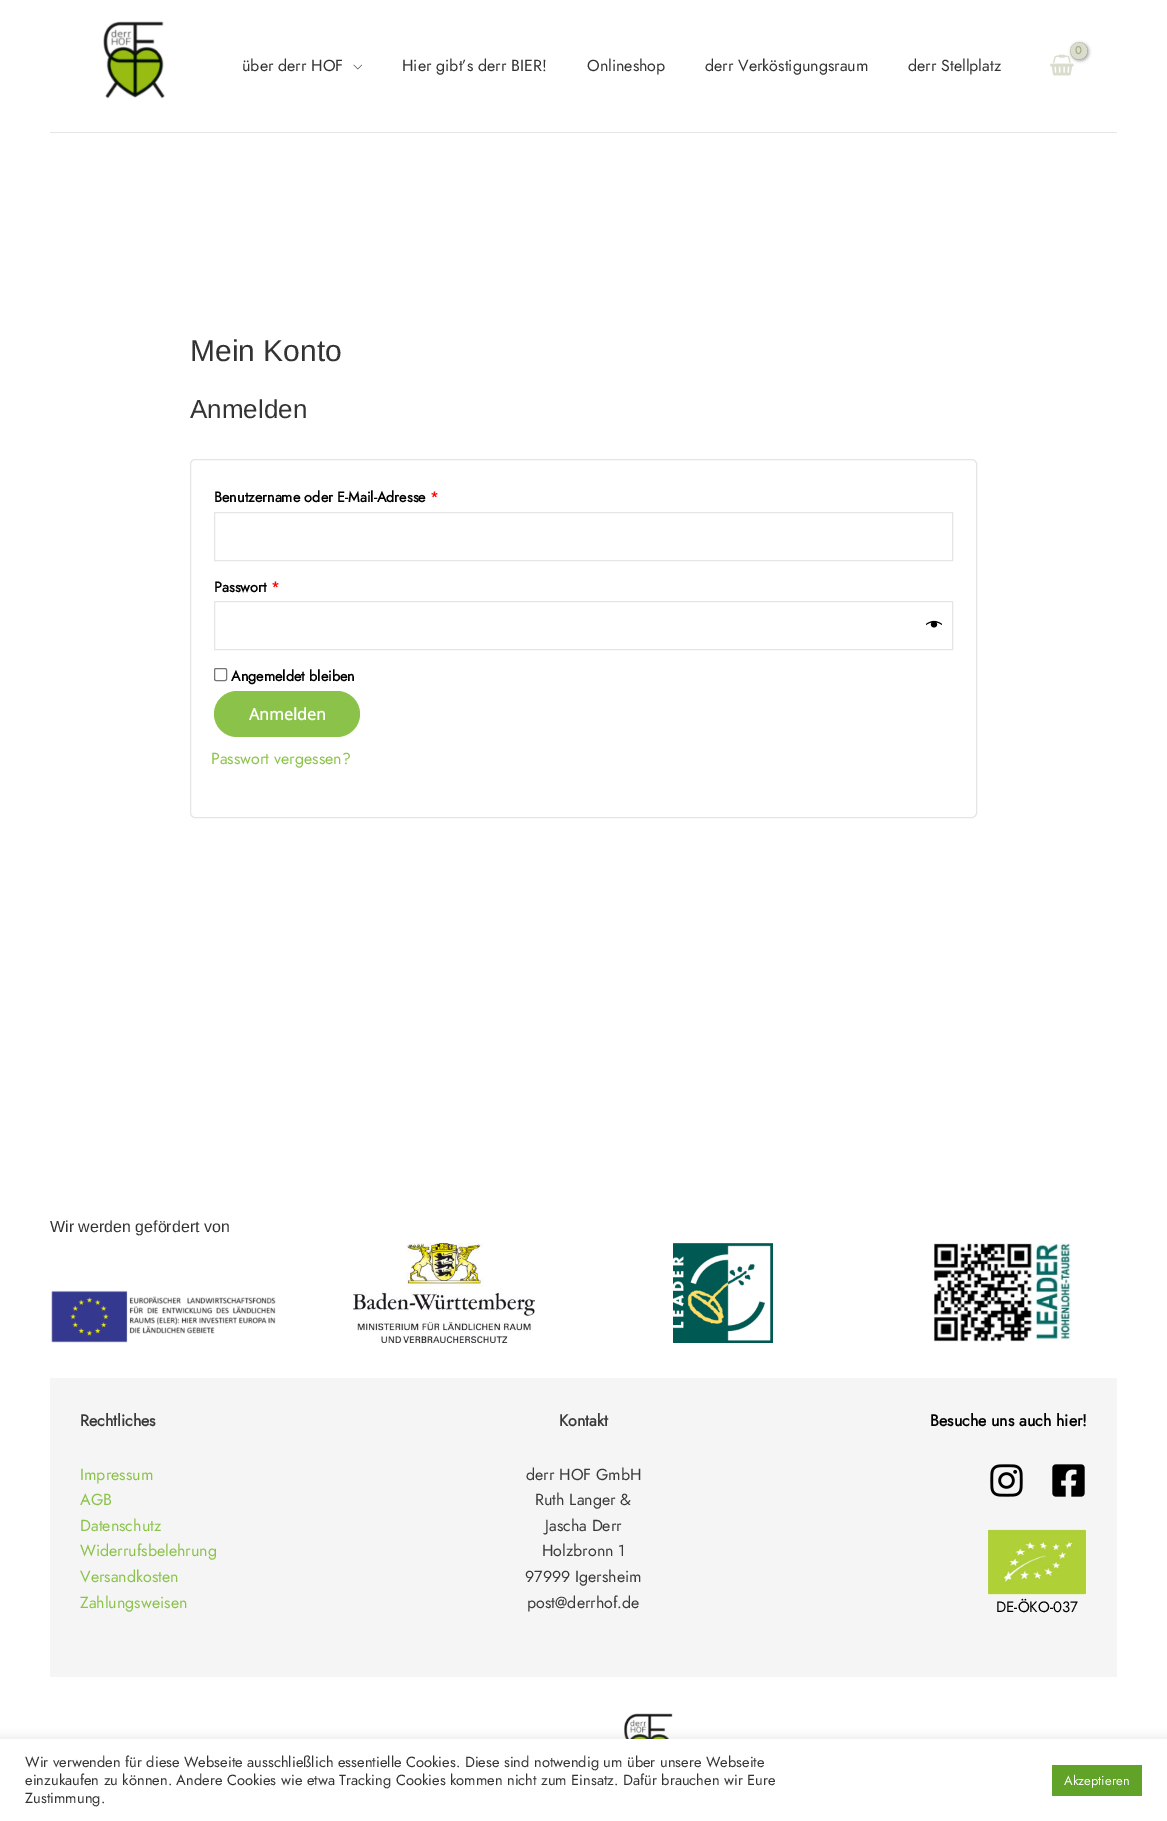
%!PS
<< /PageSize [1167 1821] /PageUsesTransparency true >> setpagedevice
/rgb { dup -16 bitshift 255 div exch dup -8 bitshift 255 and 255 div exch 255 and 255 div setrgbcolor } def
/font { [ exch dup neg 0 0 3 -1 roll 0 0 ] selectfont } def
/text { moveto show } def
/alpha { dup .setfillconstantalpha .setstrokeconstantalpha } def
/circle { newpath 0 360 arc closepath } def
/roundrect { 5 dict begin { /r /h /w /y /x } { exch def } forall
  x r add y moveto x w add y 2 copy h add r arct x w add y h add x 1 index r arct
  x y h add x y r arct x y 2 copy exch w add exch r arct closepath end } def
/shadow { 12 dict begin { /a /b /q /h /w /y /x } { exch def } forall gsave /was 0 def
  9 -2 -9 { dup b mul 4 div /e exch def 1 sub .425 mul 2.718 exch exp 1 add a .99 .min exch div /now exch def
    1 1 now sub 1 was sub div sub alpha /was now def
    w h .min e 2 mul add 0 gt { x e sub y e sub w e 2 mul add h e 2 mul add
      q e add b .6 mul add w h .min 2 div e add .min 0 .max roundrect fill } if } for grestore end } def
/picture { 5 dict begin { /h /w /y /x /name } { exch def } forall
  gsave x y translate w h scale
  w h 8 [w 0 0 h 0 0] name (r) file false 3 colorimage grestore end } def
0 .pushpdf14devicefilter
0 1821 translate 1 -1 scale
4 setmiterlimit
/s1 { /Jost-Bold 11 font 16#A4AC86 rgb } def
/s2 { /Jost-Regular 16 font 16#333333 rgb } def
/s3 { /LiberationSans-Regular 30 font 16#333333 rgb } def
/s4 { /LiberationSans-Regular 26 font 16#333333 rgb } def
/s5 { /Jost-Bold 14.4 font 16#000000 rgb } def
/s6 { /Jost-Bold 14.4 font 16#FF0000 rgb } def
/s7 { /OpenSans-Bold 16 font 16#FFFFFF rgb } def
/s8 { /Jost-Regular 16 font 16#8BC34A rgb } def
/s9 { /LiberationSans-Regular 16 font 16#333333 rgb } def
/s10 { /Jost-Bold 16 font 16#3A3A3A rgb } def
/s11 { /Jost-Regular 16 font 16#3A3A3A rgb } def
/s12 { /Jost-Bold 16 font 16#000000 rgb } def
/s13 { /Jost-Regular 15 font 16#000000 rgb } def
/s14 { /Jost-Regular 14.67 font 16#333333 rgb } def
/s15 { /Jost-Regular 13 font 16#FFFFFF rgb } def
16#FFFFFF rgb
0 0 1167 1821 rectfill
16#E5E5E5 rgb
50 132 1067 1 rectfill
(pic1.raw) 103 21 62 78 picture
(pic2.raw) 1050 54 24 22 picture
gsave
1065 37 moveto 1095 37 lineto 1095 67 lineto 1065 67 lineto closepath 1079 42 moveto 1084 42 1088 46 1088 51 curveto 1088 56 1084 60 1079 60 curveto 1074 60 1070 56 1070 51 curveto 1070 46 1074 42 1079 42 curveto closepath eoclip newpath
16#000000 rgb
1071 43 18 18 9 1.5 0.3 shadow
grestore
0.41 alpha
16#A4AC86 rgb
1079 51 9 circle fill
1 alpha
s1
(0) 1075 54 text
s2
(über derr HOF) 242 71 text
(pic3.raw) 353 64 9 6 picture
(Hier gibt’s derr BIER!) 402 71 text
(Onlineshop) 587 71 text
(derr Verköstigungsraum) 705 71 text
(derr Stellplatz) 908 71 text
s3
(Mein Konto) 190 361 text
s4
(Anmelden) 190 418 text
16#E5E5E5 rgb
190.5 459.5 786 358 4.5 roundrect stroke
s5
(Benutzername oder E-Mail-Adresse) 214 502 text
s6
(*) 430 502 text
16#E5E5E5 rgb
214.5 512.5 738 48 rectstroke
s5
(Passwort) 214 592 text
s6
(*) 271 592 text
16#E5E5E5 rgb
214.5 601.5 738 48 rectstroke
(pic4.raw) 926 620 16 8 picture
16#767676 rgb
214.5 668.5 12 12 1.5 roundrect stroke
s5
(Angemeldet bleiben) 231 681 text
16#8BC34A rgb
214 691 146 46 23 roundrect fill
s7
(Anmelden) 249 720 text
s8
(Passwort vergessen?) 211 764 text
s9
(Wir werden gefördert von) 50 1232 text
(pic5.raw) 51 1290 225 53 picture
(pic6.raw) 353 1243 182 100 picture
(pic7.raw) 673 1243 100 100 picture
(pic8.raw) 933 1243 138 99 picture
16#F5F5F5 rgb
50 1378 1067 299 rectfill
s10
(Rechtliches) 80 1426 text
s8
(Impressum) 80 1480 text
(AGB) 80 1505 text
(Datenschutz) 80 1531 text
(Widerrufsbelehrung) 80 1556 text
(Versandkosten) 80 1582 text
(Zahlungsweisen) 80 1608 text
s10
(Kontakt) 559 1426 text
s11
(derr HOF GmbH) 526 1480 text
(Ruth Langer &) 535 1505 text
(Jascha Derr) 545 1531 text
(Holzbronn 1) 542 1556 text
(97999 Igersheim) 525 1582 text
(post@derrhof.de) 527 1608 text
s12
(Besuche uns auch hier!) 930 1426 text
(pic9.raw) 990 1464 33 33 picture
(pic10.raw) 1052 1464 33 33 picture
(pic11.raw) 987 1529 100 66 picture
s13
(DE-ÖKO-037) 996 1612 text
(pic12.raw) 624 1713 50 26 picture
16#ACABAB rgb
0 1738 1167 82 0 5 0.3 shadow
16#FFFFFF rgb
0 1739 1167 82 rectfill
s14
(Wir verwenden für diese Webseite ausschließlich essentielle Cookies. Diese sind notwendig um über unsere Webseite) 25 1767 text
(einzukaufen zu können. Andere Cookies wie etwa Tracking Cookies kommen nicht zum Einsatz. Dafür brauchen wir Eure) 25 1785 text
(Zustimmung.) 25 1803 text
16#61A229 rgb
1052 1765 90 31 rectfill
s15
(Akzeptieren) 1064 1785 text
.poppdf14devicefilter showpage
